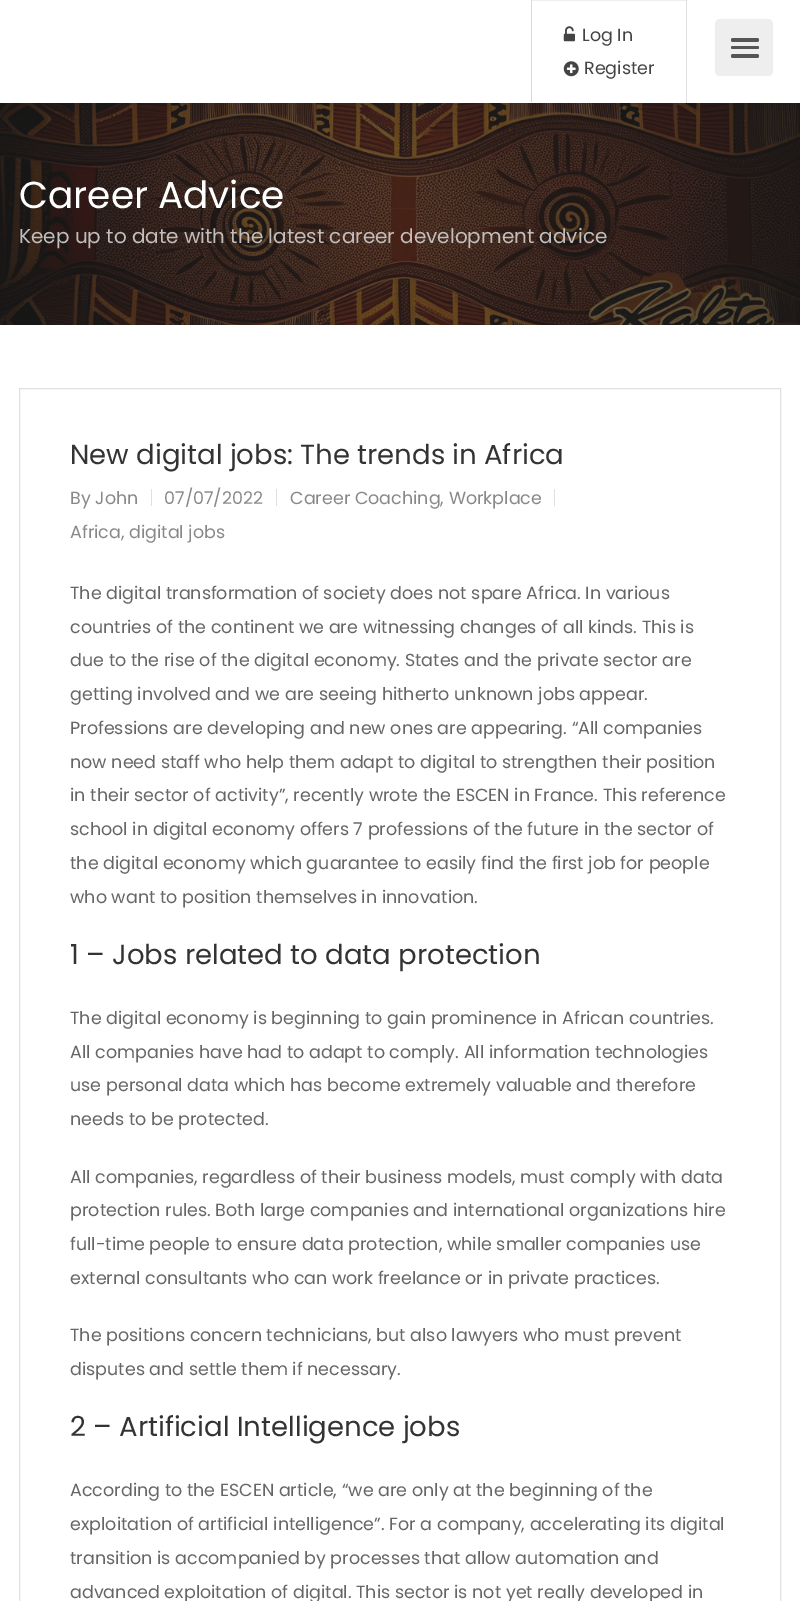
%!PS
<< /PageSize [800 1601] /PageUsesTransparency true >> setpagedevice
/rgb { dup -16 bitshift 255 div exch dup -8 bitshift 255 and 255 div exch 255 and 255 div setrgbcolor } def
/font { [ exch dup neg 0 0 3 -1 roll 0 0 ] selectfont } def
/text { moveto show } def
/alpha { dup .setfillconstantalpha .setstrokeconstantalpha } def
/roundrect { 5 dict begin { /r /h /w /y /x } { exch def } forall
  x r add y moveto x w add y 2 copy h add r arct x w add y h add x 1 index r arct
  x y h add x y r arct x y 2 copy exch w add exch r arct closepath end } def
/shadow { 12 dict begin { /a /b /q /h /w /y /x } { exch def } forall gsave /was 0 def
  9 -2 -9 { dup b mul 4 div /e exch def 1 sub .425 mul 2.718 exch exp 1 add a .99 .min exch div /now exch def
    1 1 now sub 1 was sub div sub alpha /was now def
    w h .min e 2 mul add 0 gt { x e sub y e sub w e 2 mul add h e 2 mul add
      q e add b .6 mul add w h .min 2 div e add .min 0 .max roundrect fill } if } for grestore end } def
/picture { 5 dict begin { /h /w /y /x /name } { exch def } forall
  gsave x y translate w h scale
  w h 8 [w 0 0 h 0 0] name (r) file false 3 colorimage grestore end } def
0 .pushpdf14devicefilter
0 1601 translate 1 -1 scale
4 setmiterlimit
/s1 { /Poppins-Regular 17.5 font 16#444444 rgb } def
/s2 { /Poppins-Regular 37.5 font 16#FFFFFF rgb } def
/s3 { /Poppins-Regular 20 font 16#C3BDBB rgb } def
/s4 { /Poppins-Regular 27.5 font 16#333333 rgb } def
/s5 { /Poppins-Regular 17.5 font 16#888888 rgb } def
/s6 { /Poppins-Regular 17.5 font 16#666666 rgb } def
16#FFFFFF rgb
0 0 800 1601 rectfill
(pic3.raw) 0 103 800 222 picture
16#000000 rgb
0 0 800 103 0 11 0.12 shadow
16#FFFFFF rgb
0 0 800 103 rectfill
16#EEEEEE rgb
531 0 moveto 688 0 lineto 686 1 lineto 532 1 lineto closepath fill
16#E0E0E0 rgb
686 0 1 103 rectfill
0.15 alpha
16#000000 rgb
531 102 moveto 531 0 lineto 532 1 lineto 532 102 lineto closepath fill
1 alpha
(pic1.raw) 563 26 12 16 picture
s1
(Log In) 582 41 text
(pic2.raw) 563 61 16 16 picture
(Register) 584 74 text
16#EEEEEE rgb
715 19 58 57 5 roundrect fill
16#555555 rgb
731 54 28 4 2 roundrect fill
731 38 28 4 2 roundrect fill
731 46 28 3 1.5 roundrect fill
s2
(Career Advice) 19 208 text
s3
(Keep up to date with the latest career development advice) 19 243 text
16#E0E0E0 rgb
19.5 388.5 761 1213 rectstroke
s4
(New digital jobs: The trends in Africa) 70 464 text
16#E0E0E0 rgb
151 489 1 17 rectfill
s5
(By John) 70 504 text
16#E0E0E0 rgb
276 489 1 17 rectfill
s5
(07/07/2022) 164 504 text
16#E0E0E0 rgb
554 489 1 17 rectfill
s5
(Career Coaching, Workplace) 290 504 text
(Africa, digital jobs) 70 538 text
s6
(The digital transformation of society does not spare Africa. In various) 70 599 text
(countries of the continent we are witnessing changes of all kinds. This is) 70 633 text
(due to the rise of the digital economy. States and the private sector are) 70 666 text
(getting involved and we are seeing hitherto unknown jobs appear.) 70 700 text
(Professions are developing and new ones are appearing. “All companies) 70 734 text
(now need staff who help them adapt to digital to strengthen their position) 70 768 text
(in their sector of activity”, recently wrote the ESCEN in France. This reference) 70 801 text
(school in digital economy offers 7 professions of the future in the sector of) 70 835 text
(the digital economy which guarantee to easily find the first job for people) 70 869 text
(who want to position themselves in innovation.) 70 903 text
s4
(1 – Jobs related to data protection) 70 964 text
s6
(The digital economy is beginning to gain prominence in African countries.) 70 1024 text
(All companies have had to adapt to comply. All information technologies) 70 1058 text
(use personal data which has become extremely valuable and therefore) 70 1091 text
(needs to be protected.) 70 1125 text
(All companies, regardless of their business models, must comply with data) 70 1183 text
(protection rules. Both large companies and international organizations hire) 70 1216 text
(full-time people to ensure data protection, while smaller companies use) 70 1250 text
(external consultants who can work freelance or in private practices.) 70 1284 text
(The positions concern technicians, but also lawyers who must prevent) 70 1341 text
(disputes and settle them if necessary.) 70 1375 text
s4
(2 – Artificial Intelligence jobs) 70 1436 text
s6
(According to the ESCEN article, “we are only at the beginning of the) 70 1496 text
(exploitation of artificial intelligence”. For a company, accelerating its digital) 70 1530 text
(transition is accompanied by processes that allow automation and) 70 1564 text
(advanced exploitation of digital. This sector is not yet really developed in) 70 1598 text
.poppdf14devicefilter showpage
